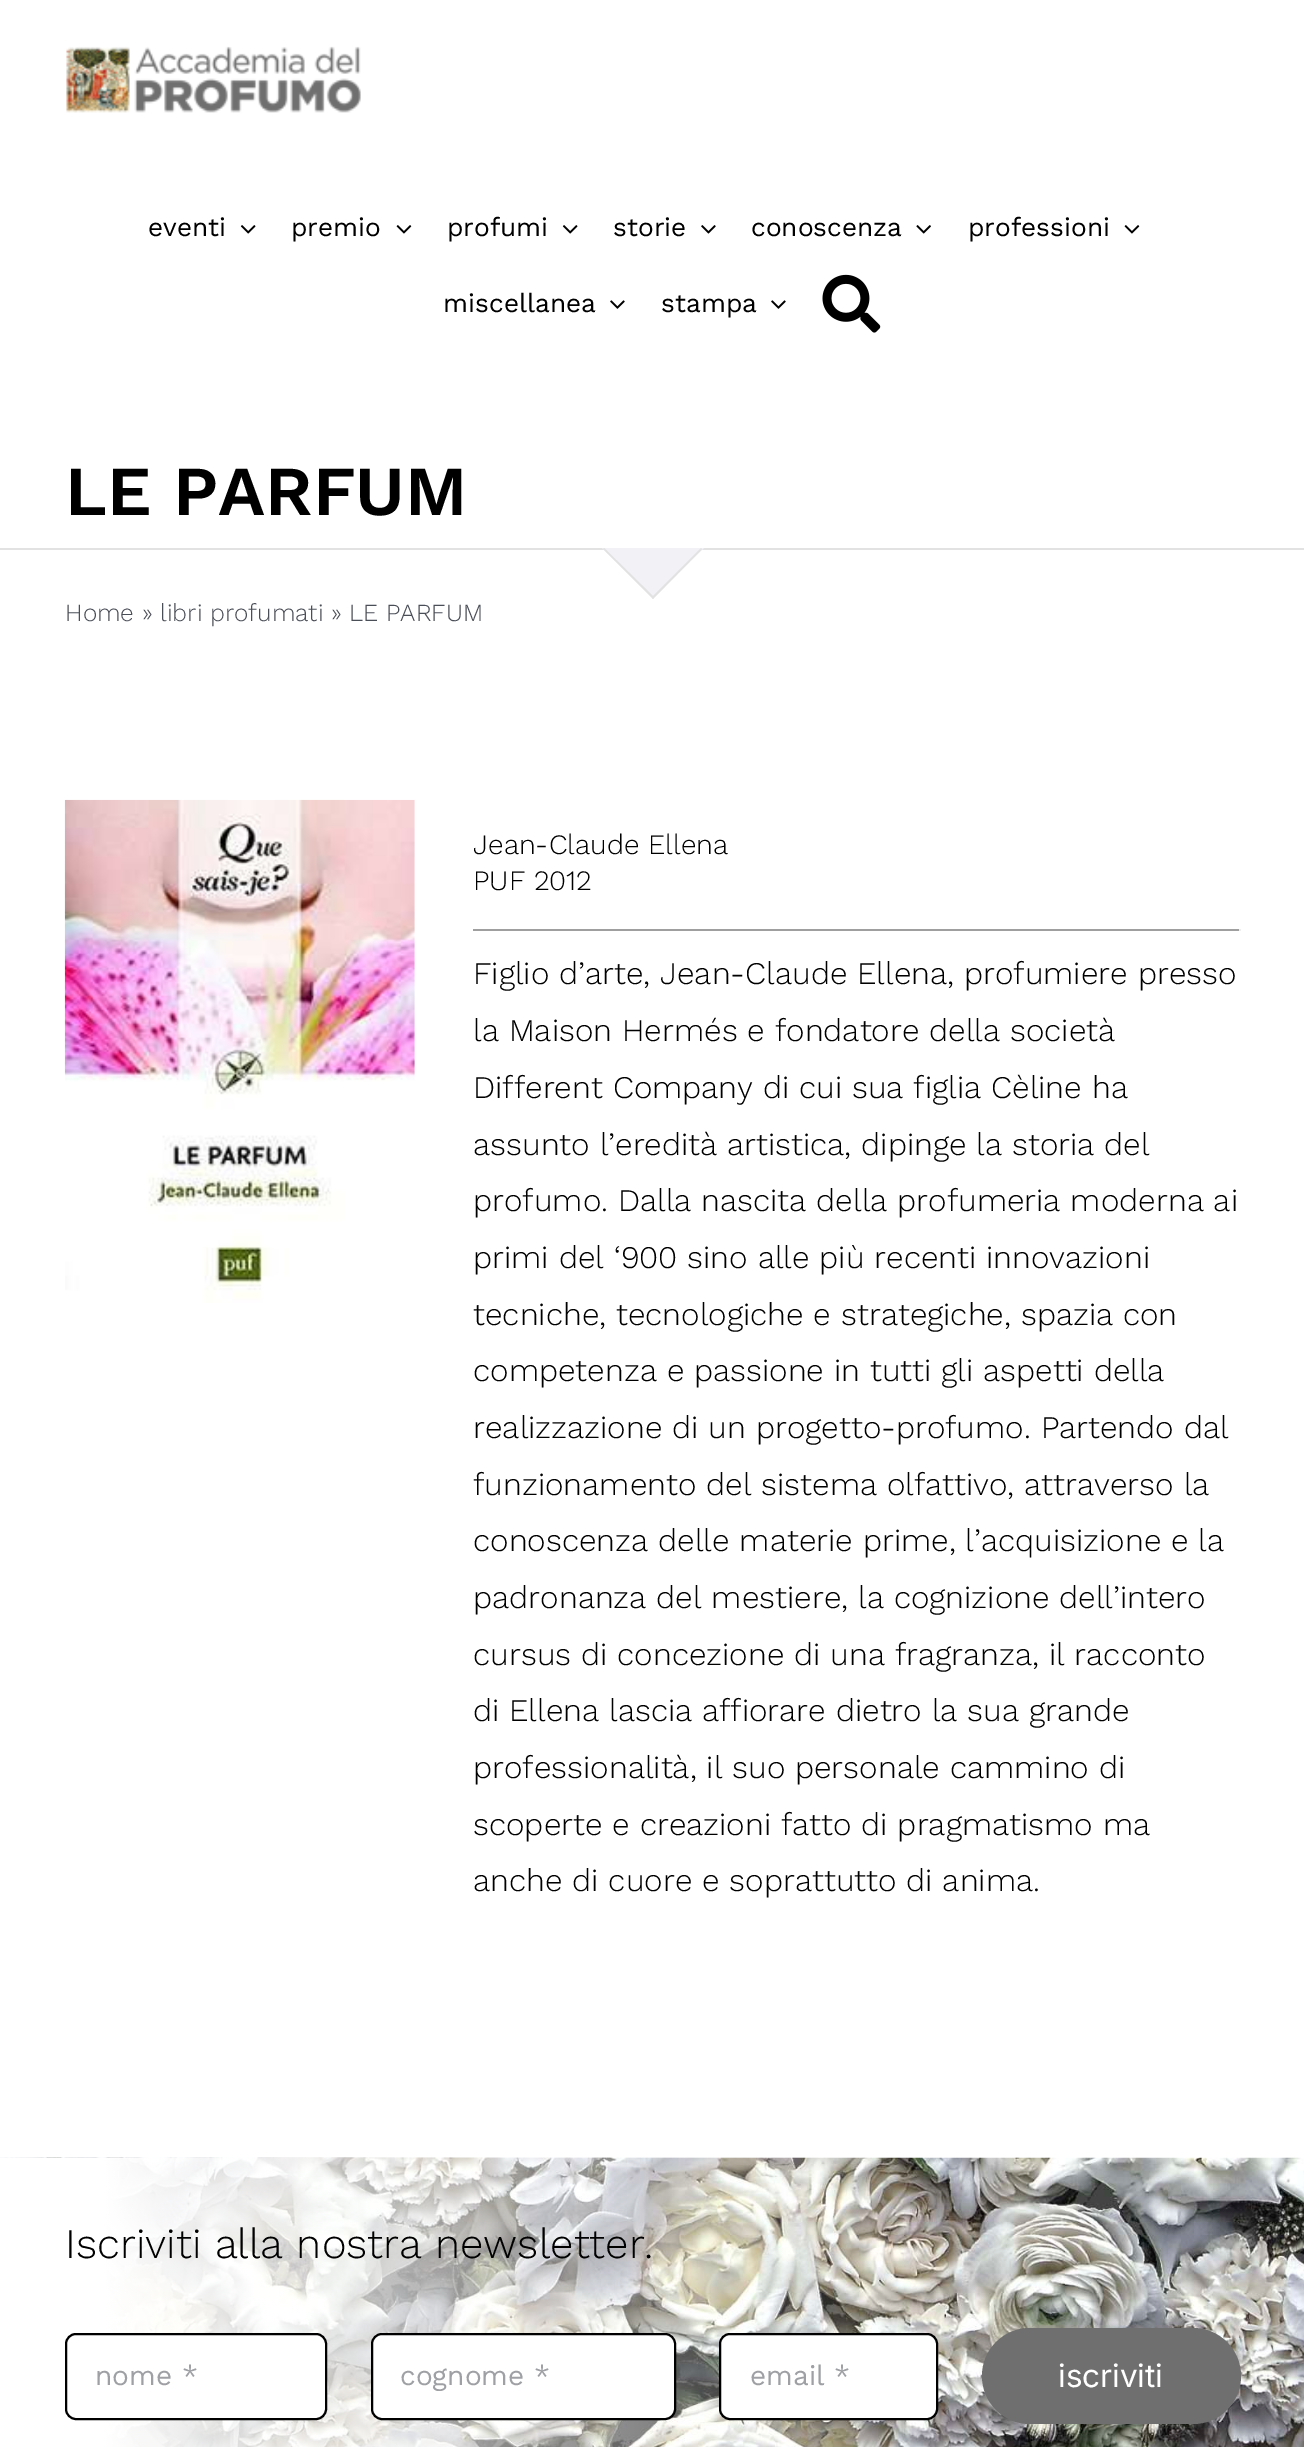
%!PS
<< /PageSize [1304 2447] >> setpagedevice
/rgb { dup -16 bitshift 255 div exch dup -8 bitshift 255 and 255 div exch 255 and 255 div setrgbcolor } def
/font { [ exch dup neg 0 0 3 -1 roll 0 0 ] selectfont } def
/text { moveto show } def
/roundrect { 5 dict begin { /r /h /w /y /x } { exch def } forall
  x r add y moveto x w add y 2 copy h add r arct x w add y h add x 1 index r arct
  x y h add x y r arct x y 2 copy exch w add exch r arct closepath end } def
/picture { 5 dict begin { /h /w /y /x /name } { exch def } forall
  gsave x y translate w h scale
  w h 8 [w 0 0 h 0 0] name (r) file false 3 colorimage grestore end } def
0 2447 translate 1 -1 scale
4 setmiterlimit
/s1 { /WorkSans-Regular 26.25 font 16#000000 rgb } def
/s2 { /WorkSans-SemiBold 70 font 16#000000 rgb } def
/s3 { /WorkSans-Light 24.5 font 16#4A4E57 rgb } def
/s4 { /WorkSans-Light 28 font 16#000000 rgb } def
/s5 { /WorkSans-Light 31.5 font 16#000000 rgb } def
/s6 { /WorkSans-Light 42 font 16#000000 rgb } def
/s7 { /WorkSans-Regular 28 font 16#9EA0A4 rgb } def
/s8 { /Inter-Regular 31.5 font 16#FFFFFF rgb } def
16#FFFFFF rgb
0 0 1304 2447 rectfill
(pic1.raw) 66 46 295 67 picture
s1
(eventi) 148 236 text
(pic2.raw) 240 225 16 9 picture
(premio) 291 236 text
(pic3.raw) 396 225 16 9 picture
(profumi) 447 236 text
(pic2.raw) 562 225 16 9 picture
(storie) 613 236 text
(pic4.raw) 701 225 15 9 picture
(conoscenza) 751 236 text
(pic5.raw) 916 225 15 9 picture
(professioni) 968 236 text
(pic3.raw) 1124 225 16 9 picture
(miscellanea) 443 312 text
(pic6.raw) 610 300 15 9 picture
(stampa) 661 312 text
(pic6.raw) 771 300 15 9 picture
(pic7.raw) 822 274 59 59 picture
s2
(LE PARFUM) 65 515 text
16#E2E2E2 rgb
0 548 1304 2 rectfill
16#F2F1F6 rgb
602 548 moveto 704 548 lineto 653 598 lineto closepath fill
16#E2E2E2 rgb
652 597 moveto 701 548 lineto 702 549 lineto 653 599 lineto closepath fill
603 549 moveto 604 548 lineto 654 597 lineto 653 599 lineto closepath fill
s3
(Home » libri profumati » LE PARFUM) 65 621 text
(pic8.raw) 64 799 351 504 picture
s4
(Jean-Claude Ellena) 473 854 text
(PUF 2012) 473 890 text
16#9F9F9F rgb
473 929 768 2 rectfill
16#EEEEEE rgb
1239 929 2 2 rectfill
s5
(Figlio d’arte, Jean-Claude Ellena, profumiere presso) 473 984 text
(la Maison Hermés e fondatore della società) 473 1041 text
(Different Company di cui sua figlia Cèline ha) 473 1098 text
(assunto l’eredità artistica, dipinge la storia del) 473 1155 text
(profumo. Dalla nascita della profumeria moderna ai) 473 1211 text
(primi del ‘900 sino alle più recenti innovazioni) 473 1268 text
(tecniche, tecnologiche e strategiche, spazia con) 473 1325 text
(competenza e passione in tutti gli aspetti della) 473 1381 text
(realizzazione di un progetto-profumo. Partendo dal) 473 1438 text
(funzionamento del sistema olfattivo, attraverso la) 473 1495 text
(conoscenza delle materie prime, l’acquisizione e la) 473 1551 text
(padronanza del mestiere, la cognizione dell’intero) 473 1608 text
(cursus di concezione di una fragranza, il racconto) 473 1665 text
(di Ellena lascia affiorare dietro la sua grande) 473 1721 text
(professionalità, il suo personale cammino di) 473 1778 text
(scoperte e creazioni fatto di pragmatismo ma) 473 1835 text
(anche di cuore e soprattutto di anima.) 473 1891 text
(pic9.raw) 0 2157 1304 290 picture
s6
(Iscriviti alla nostra newsletter.) 65 2258 text
16#FFFFFF rgb
66 2334 260 85 10 roundrect gsave fill grestore
16#000000 rgb
2 setlinewidth
stroke
s7
(nome *) 95 2385 text
16#FFFFFF rgb
372 2334 303 85 10 roundrect gsave fill grestore
16#000000 rgb
stroke
s7
(cognome *) 400 2385 text
16#FFFFFF rgb
720 2334 217 85 10 roundrect gsave fill grestore
16#000000 rgb
stroke
s7
(email *) 750 2385 text
16#6F6F6F rgb
982 2328 259 96 48 roundrect fill
s8
(iscriviti) 1058 2387 text
showpage
